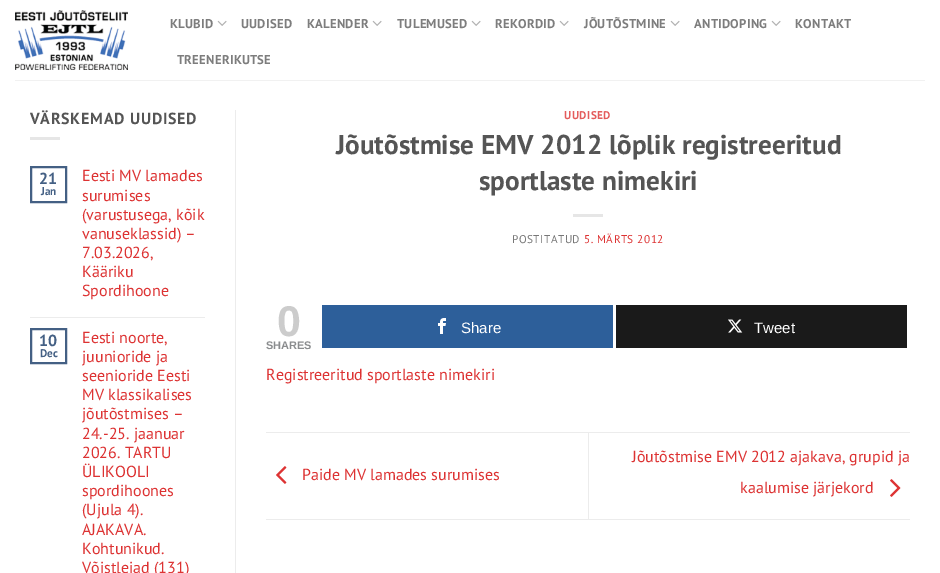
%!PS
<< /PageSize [940 573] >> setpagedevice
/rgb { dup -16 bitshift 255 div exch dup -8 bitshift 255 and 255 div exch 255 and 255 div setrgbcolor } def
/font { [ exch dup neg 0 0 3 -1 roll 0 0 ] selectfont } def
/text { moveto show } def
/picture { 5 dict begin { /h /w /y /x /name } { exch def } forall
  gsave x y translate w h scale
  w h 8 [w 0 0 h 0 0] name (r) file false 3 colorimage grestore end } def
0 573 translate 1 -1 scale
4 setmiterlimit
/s1 { /PTSans-Bold 16 font 16#446084 rgb } def
/s2 { /PTSans-Bold 11.25 font 16#446084 rgb } def
/s3 { /PTSans-Regular 16 font 16#DD3333 rgb } def
/s4 { /PTSans-Bold 27.25 font 16#555555 rgb } def
/s5 { /LiberationSans-Bold 43 font 16#CCCCCC rgb } def
/s6 { /LiberationSans-Bold 11 font 16#8A8C8E rgb } def
/s7 { /LiberationSans-Regular 15 font 16#FFFFFF rgb } def
16#FFFFFF rgb
0 0 940 573 rectfill
(pic1.raw) 15 10 113 60 picture
/PTSans-Bold 12.75 font
16#7D7D7D rgb
170 28 moveto 0.25 0 (KLUBID) ashow
(pic2.raw) 217 20 10 6 picture
241 28 moveto 0.25 0 (UUDISED) ashow
307 28 moveto 0.25 0 (KALENDER) ashow
(pic2.raw) 372 20 10 6 picture
397 28 moveto 0.25 0 (TULEMUSED) ashow
(pic2.raw) 471 20 10 6 picture
495 28 moveto 0.25 0 (REKORDID) ashow
(pic2.raw) 559 20 10 6 picture
584 28 moveto 0.25 0 (JÕUTÕSTMINE) ashow
(pic2.raw) 670 20 10 6 picture
694 28 moveto 0.25 0 (ANTIDOPING) ashow
(pic2.raw) 771 20 10 6 picture
795 28 moveto 0.25 0 (KONTAKT) ashow
177 64 moveto 0.25 0 (TREENERIKUTSE) ashow
16#F1F1F1 rgb
15 80 910 1 rectfill
/PTSans-Bold 16 font
16#555555 rgb
30 124 moveto 0.75 0 (VÄRSKEMAD UUDISED) ashow
16#E6E6E6 rgb
30 137 30 3 rectfill
16#446084 rgb
2 setlinewidth
31 167 35 35 rectstroke
(21) 39 184 text
s2
(Jan) 41 195 text
s3
(Eesti MV lamades) 82 181 text
(surumises) 82 201 text
(\(varustusega, kõik) 82 220 text
(vanuseklassid\) –) 82 239 text
(7.03.2026,) 82 258 text
(Kääriku) 82 277 text
(Spordihoone) 82 296 text
16#ECECEC rgb
30 317 175 1 rectfill
16#446084 rgb
31 329 35 34 rectstroke
s1
(10) 39 346 text
s2
(Dec) 40 357 text
s3
(Eesti noorte,) 82 343 text
(juunioride ja) 82 362 text
(seenioride Eesti) 82 381 text
(MV klassikalises) 82 400 text
(jõutõstmises –) 82 419 text
(24.-25. jaanuar) 82 439 text
(2026. TARTU) 82 458 text
(ÜLIKOOLI) 82 477 text
(spordihoones) 82 496 text
(\(Ujula 4\).) 82 515 text
(AJAKAVA.) 82 535 text
(Kohtunikud.) 82 554 text
(Võistlejad \(131\)) 82 573 text
16#ECECEC rgb
235 110 1 463 rectfill
/PTSans-Bold 11.25 font
16#E45C5C rgb
564 119 moveto 0.5 0 (UUDISED) ashow
s4
(Jõutõstmise EMV 2012 lõplik registreeritud) 336 154 text
(sportlaste nimekiri) 479 190 text
16#E6E6E6 rgb
573 214 30 3 rectfill
/PTSans-Regular 11.25 font
16#777777 rgb
512 243 moveto 0.5 0 (POSTITATUD) ashow
16#DD3333 rgb
584 243 moveto 0.5 0 (5. MÄRTS 2012) ashow
s5
(0) 277 336 text
s6
(SHARES) 266 349 text
16#2D5F9A rgb
322 305 291 43 rectfill
(pic3.raw) 438 318 8 16 picture
s7
(Share) 461 333 text
16#1A1A1A rgb
616 305 291 43 rectfill
(pic4.raw) 728 319 15 14 picture
s7
(Tweet) 754 333 text
s3
(Registreeritud sportlaste nimekiri) 266 380 text
16#ECECEC rgb
266 432 644 1 rectfill
266 519 644 1 rectfill
(pic5.raw) 276 466 11 18 picture
s3
(Paide MV lamades surumises) 302 480 text
16#ECECEC rgb
588 433 1 86 rectfill
s3
(Jõutõstmise EMV 2012 ajakava, grupid ja) 632 462 text
(kaalumise järjekord) 740 493 text
(pic6.raw) 890 479 11 18 picture
showpage
